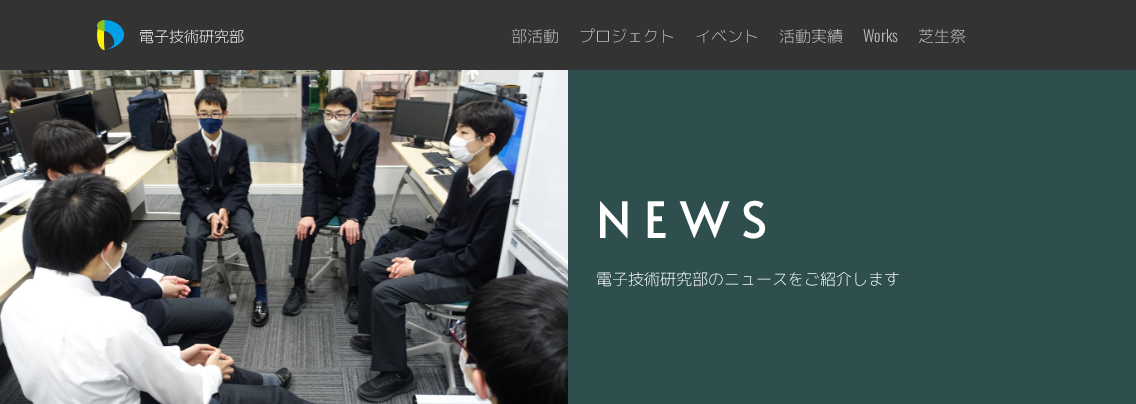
%!PS
<< /PageSize [1136 404] >> setpagedevice
/rgb { dup -16 bitshift 255 div exch dup -8 bitshift 255 and 255 div exch 255 and 255 div setrgbcolor } def
/font { [ exch dup neg 0 0 3 -1 roll 0 0 ] selectfont } def
/text { moveto show } def
/picture { 5 dict begin { /h /w /y /x /name } { exch def } forall
  gsave x y translate w h scale
  w h 8 [w 0 0 h 0 0] name (r) file false 3 colorimage grestore end } def
0 404 translate 1 -1 scale
4 setmiterlimit
/s1 { /MPLUS1p-Light 15 font 16#FFFFFF rgb } def
/s2 { /MPLUS1p-Light 16 font 16#C0C0C0 rgb } def
/s3 { /Oswald-Light 16 font 16#C0C0C0 rgb } def
/s4 { /MPLUS1p-Light 16 font 16#FFFFFF rgb } def
16#FFFFFF rgb
0 0 1136 404 rectfill
16#333333 rgb
0 0 1136 70 rectfill
(pic1.raw) 97 20 27 30 picture
s1
(電子技術研究部) 139 42 text
s2
(部活動) 511 42 text
(プロジェクト) 579 42 text
(イベント) 695 42 text
(活動実績) 779 42 text
s3
(Works) 863 42 text
s2
(芝生祭) 918 42 text
(pic2.raw) 0 70 568 334 picture
16#2F4F4F rgb
568 70 568 334 rectfill
/Alata-Regular 50 font
16#FFFFFF rgb
596 238 moveto 12.5 0 (NEWS) ashow
s4
(電子技術研究部のニュースをご紹介します) 596 285 text
showpage
